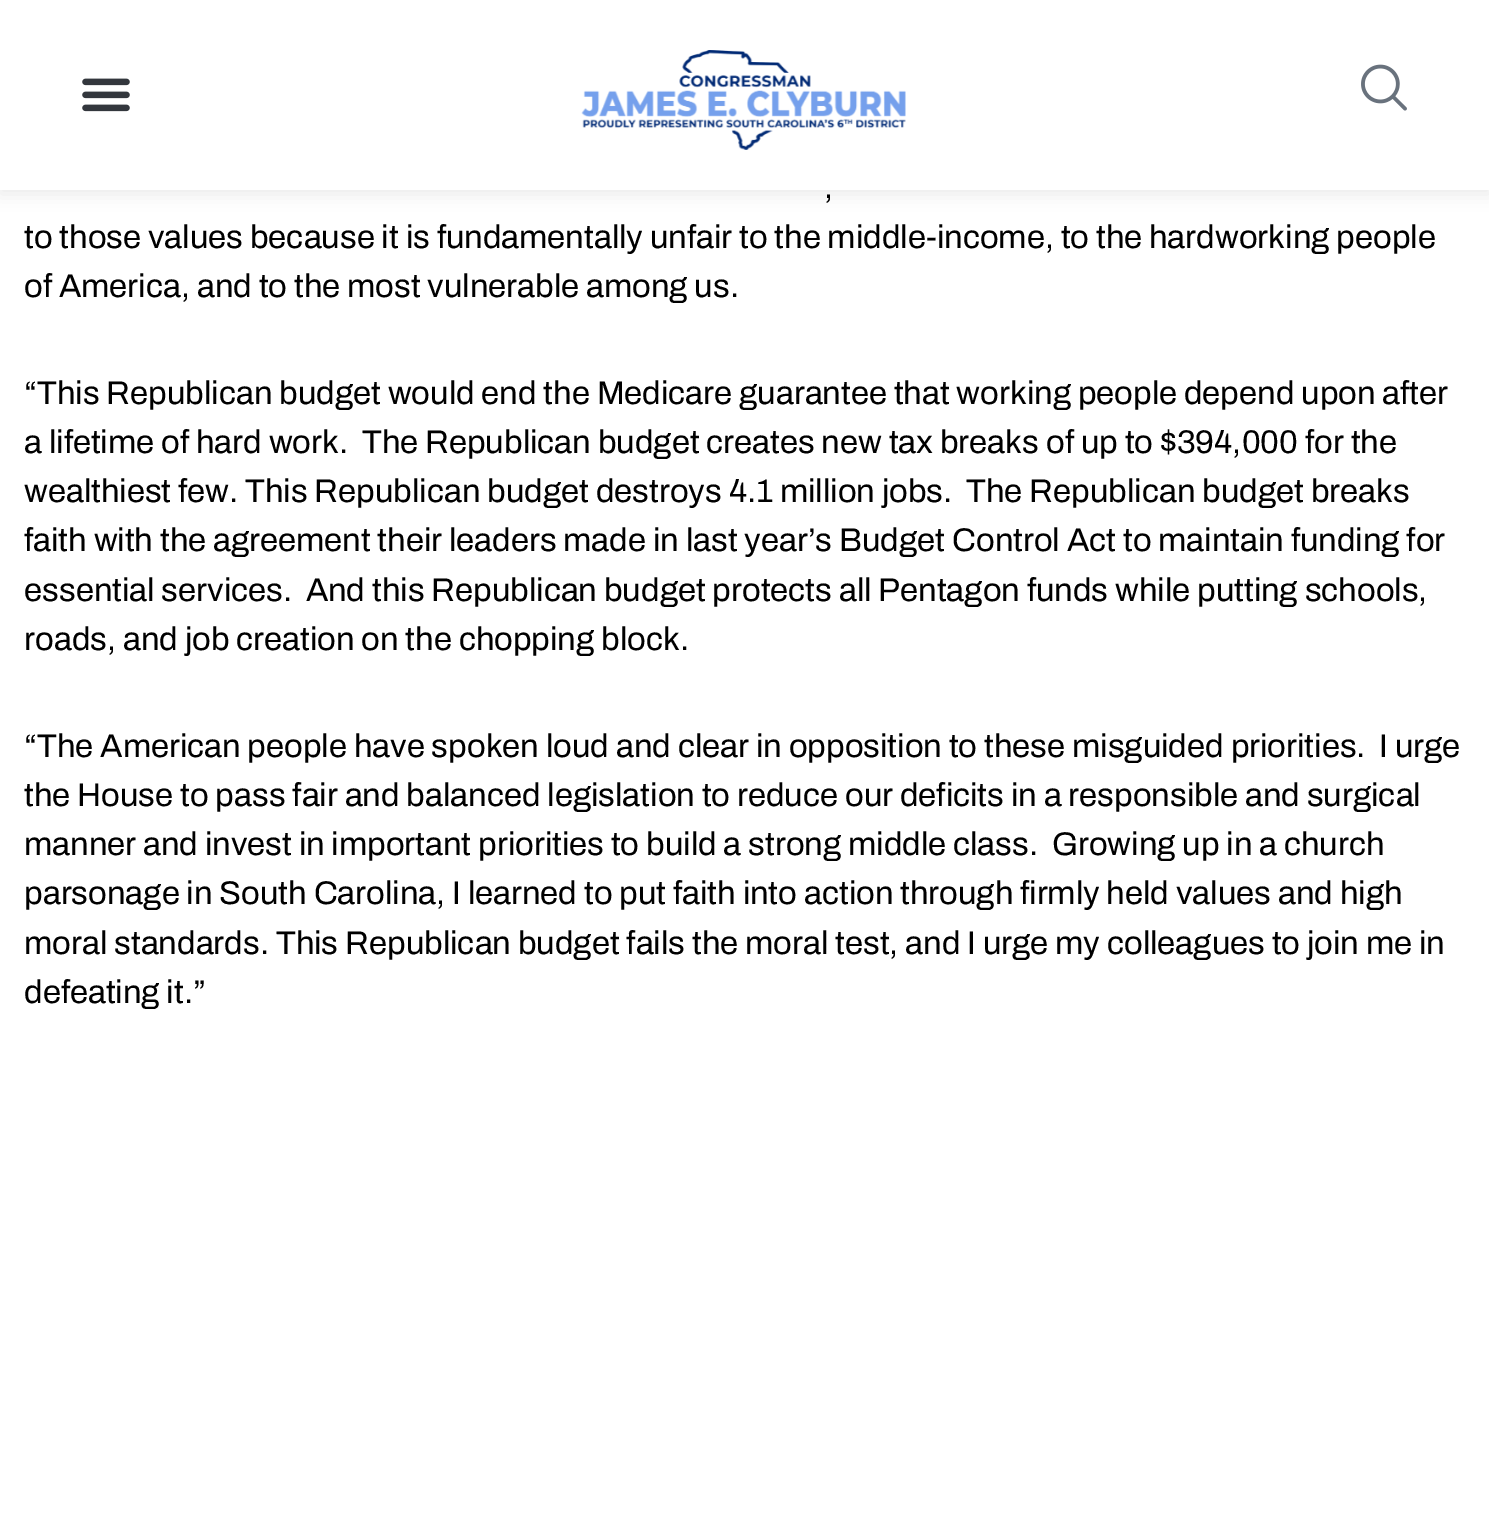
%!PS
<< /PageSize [1489 1521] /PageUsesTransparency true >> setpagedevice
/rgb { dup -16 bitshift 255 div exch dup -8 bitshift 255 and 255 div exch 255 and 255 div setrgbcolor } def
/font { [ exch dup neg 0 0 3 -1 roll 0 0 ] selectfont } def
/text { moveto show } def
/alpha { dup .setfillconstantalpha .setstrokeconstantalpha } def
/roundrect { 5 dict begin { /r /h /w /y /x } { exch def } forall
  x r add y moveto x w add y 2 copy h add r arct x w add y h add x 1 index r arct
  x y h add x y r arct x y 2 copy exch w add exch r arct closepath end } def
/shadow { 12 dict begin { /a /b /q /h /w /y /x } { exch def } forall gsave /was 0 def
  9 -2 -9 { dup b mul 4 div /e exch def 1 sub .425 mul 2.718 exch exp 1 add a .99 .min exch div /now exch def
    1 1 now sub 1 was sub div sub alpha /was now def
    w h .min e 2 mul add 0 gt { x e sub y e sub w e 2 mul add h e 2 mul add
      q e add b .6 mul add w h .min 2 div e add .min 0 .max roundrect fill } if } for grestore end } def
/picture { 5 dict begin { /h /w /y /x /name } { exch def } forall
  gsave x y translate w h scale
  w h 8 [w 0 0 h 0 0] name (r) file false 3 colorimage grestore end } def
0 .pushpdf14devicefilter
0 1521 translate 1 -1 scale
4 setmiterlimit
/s1 { /Archivo-Regular 32.85 font 16#000000 rgb } def
16#FFFFFF rgb
0 0 1489 1521 rectfill
16#000000 rgb
0 4 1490 190 0 8 0.08 shadow
16#FFFFFF rgb
0 0 1489 190 rectfill
(pic1.raw) 82 78 48 34 picture
(pic2.raw) 581 50 325 100 picture
(pic3.raw) 1361 64 46 47 picture
s1
(,) 824 198 text
(to those values because it is fundamentally unfair to the middle-income, to the hardworking people) 24 248 text
(of America, and to the most vulnerable among us.) 24 297 text
(“This Republican budget would end the Medicare guarantee that working people depend upon after) 24 404 text
(a lifetime of hard work.  The Republican budget creates new tax breaks of up to $394,000 for the) 24 453 text
(wealthiest few. This Republican budget destroys 4.1 million jobs.  The Republican budget breaks) 24 502 text
(faith with the agreement their leaders made in last year’s Budget Control Act to maintain funding for) 24 551 text
(essential services.  And this Republican budget protects all Pentagon funds while putting schools,) 24 601 text
(roads, and job creation on the chopping block.) 24 650 text
(“The American people have spoken loud and clear in opposition to these misguided priorities.  I urge) 24 757 text
(the House to pass fair and balanced legislation to reduce our deficits in a responsible and surgical) 24 806 text
(manner and invest in important priorities to build a strong middle class.  Growing up in a church) 24 855 text
(parsonage in South Carolina, I learned to put faith into action through firmly held values and high) 24 904 text
(moral standards. This Republican budget fails the moral test, and I urge my colleagues to join me in) 24 954 text
(defeating it.”) 24 1003 text
.poppdf14devicefilter showpage
